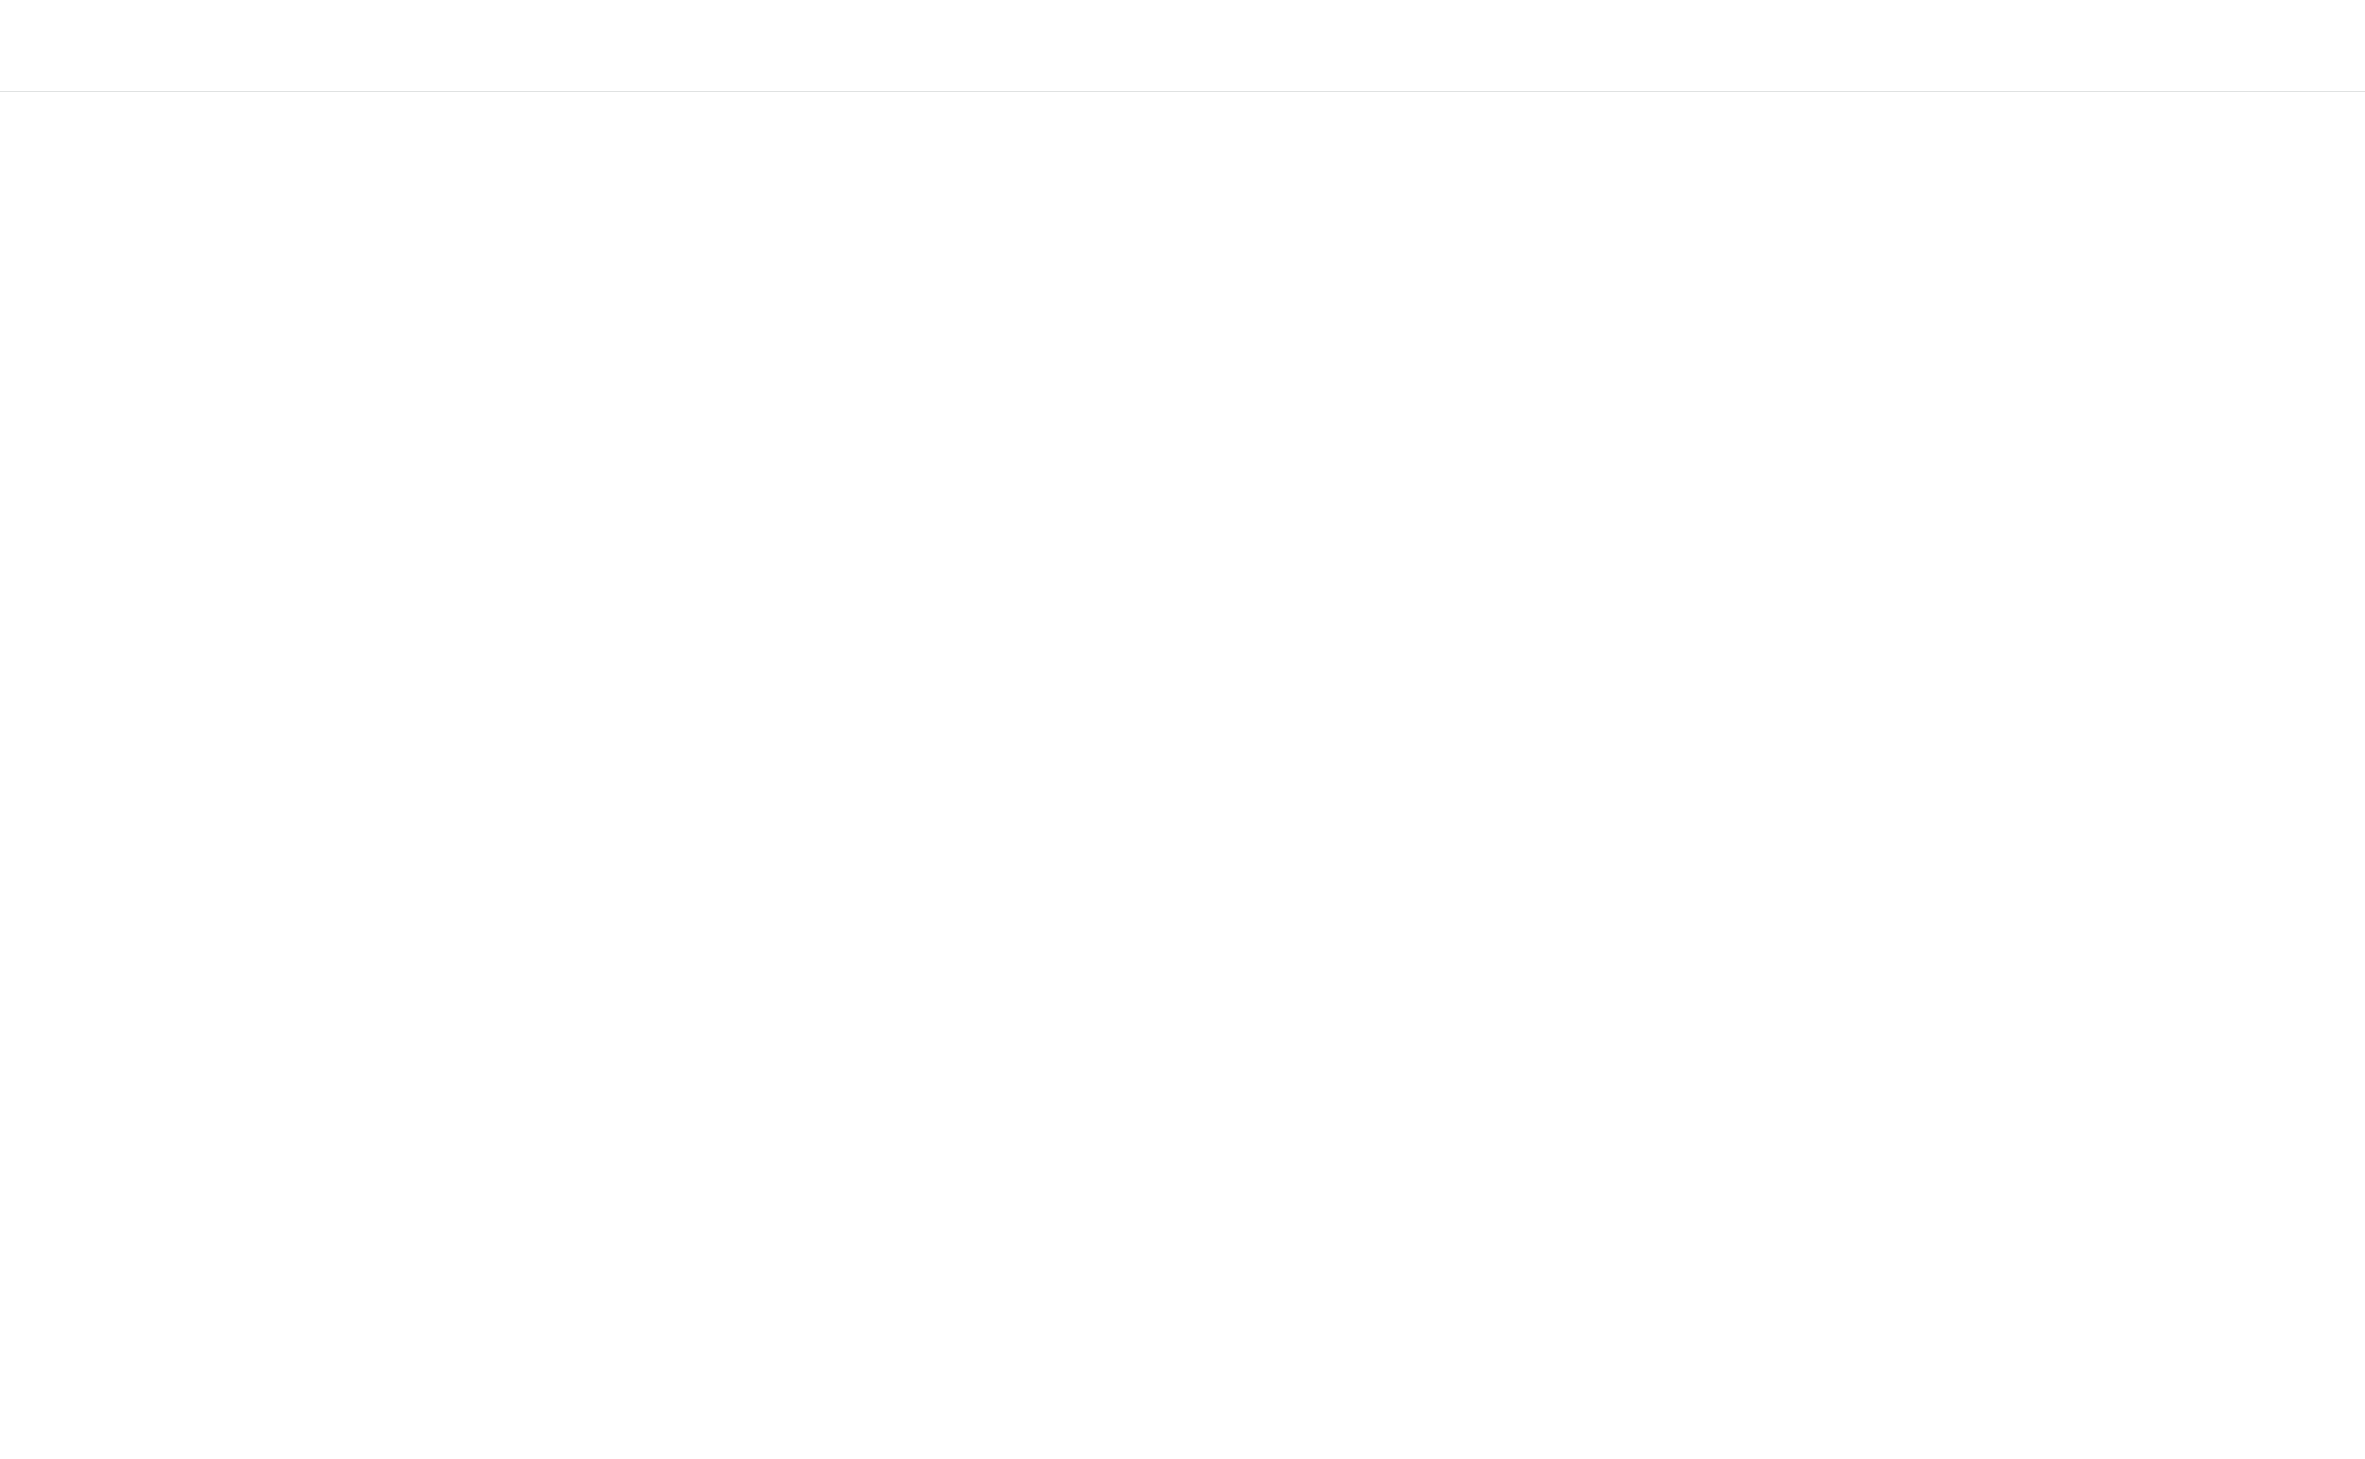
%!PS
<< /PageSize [2365 1459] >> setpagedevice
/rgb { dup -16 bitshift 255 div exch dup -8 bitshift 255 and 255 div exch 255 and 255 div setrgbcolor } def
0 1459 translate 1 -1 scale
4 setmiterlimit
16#FFFFFF rgb
0 0 2365 1459 rectfill
16#E0E2E2 rgb
0 91 2365 1 rectfill
showpage
